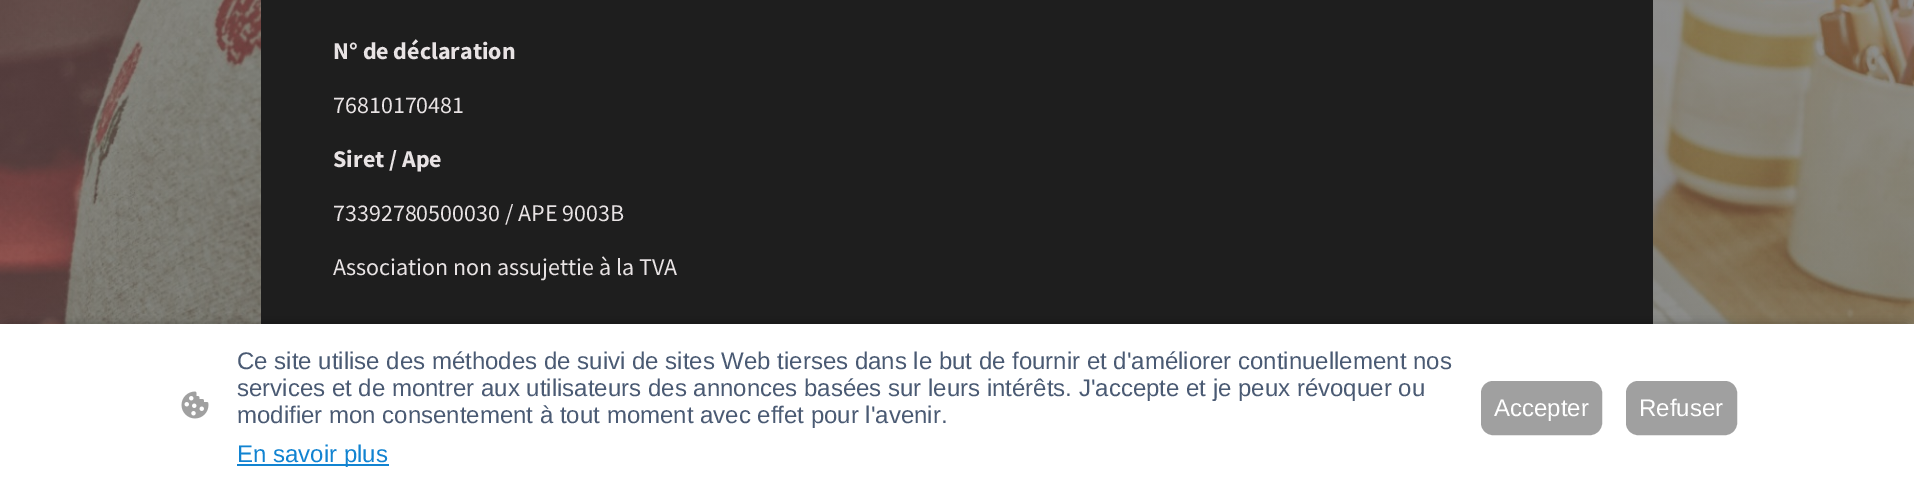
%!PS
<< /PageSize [1914 491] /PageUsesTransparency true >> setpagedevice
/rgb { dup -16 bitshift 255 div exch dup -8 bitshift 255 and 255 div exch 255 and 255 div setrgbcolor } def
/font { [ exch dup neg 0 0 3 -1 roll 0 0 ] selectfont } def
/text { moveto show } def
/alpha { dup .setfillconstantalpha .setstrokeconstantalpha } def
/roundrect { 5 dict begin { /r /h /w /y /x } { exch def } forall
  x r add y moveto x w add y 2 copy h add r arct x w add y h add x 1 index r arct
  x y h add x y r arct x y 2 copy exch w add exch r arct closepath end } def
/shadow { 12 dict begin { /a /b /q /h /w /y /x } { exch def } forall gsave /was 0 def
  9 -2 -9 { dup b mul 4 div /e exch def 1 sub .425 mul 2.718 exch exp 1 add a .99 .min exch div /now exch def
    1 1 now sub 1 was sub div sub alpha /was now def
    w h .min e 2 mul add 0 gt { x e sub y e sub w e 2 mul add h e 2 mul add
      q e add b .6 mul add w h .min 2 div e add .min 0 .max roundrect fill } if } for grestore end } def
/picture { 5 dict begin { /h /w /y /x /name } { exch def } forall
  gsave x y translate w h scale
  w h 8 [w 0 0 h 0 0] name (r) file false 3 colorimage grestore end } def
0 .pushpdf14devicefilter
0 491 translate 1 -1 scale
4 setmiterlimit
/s1 { /SourceSansPro-Bold 24 font 16#E8E3E4 rgb } def
/s2 { /SourceSansPro-Regular 24 font 16#E8E3E4 rgb } def
/s3 { /LiberationSans-Regular 24 font 16#4A5A73 rgb } def
/s4 { /LiberationSans-Regular 24 font 16#1183D1 rgb } def
/s5 { /LiberationSans-Regular 24 font 16#FFFFFF rgb } def
16#FFFFFF rgb
0 0 1914 491 rectfill
(pic1.raw) 0 0 1914 324 picture
16#1E1E1E rgb
261 0 1392 324 rectfill
s1
(N° de déclaration) 333 59 text
s2
(76810170481) 333 113 text
s1
(Siret / Ape) 333 167 text
s2
(73392780500030 / APE 9003B) 333 221 text
(Association non assujettie à la TVA) 333 275 text
16#000000 rgb
9 329 1896 150 0 6 0.63 shadow
16#FFFFFF rgb
0 324 1914 167 rectfill
(pic2.raw) 181 391 28 28 picture
s3
(Ce site utilise des méthodes de suivi de sites Web tierses dans le but de fournir et d'améliorer continuellement nos) 237 369 text
(services et de montrer aux utilisateurs des annonces basées sur leurs intérêts. J'accepte et je peux révoquer ou) 237 396 text
(modifier mon consentement à tout moment avec effet pour l'avenir.) 237 423 text
16#1183D1 rgb
237 464 152 2 rectfill
(En savoir plus) 237 462 text
16#A0A0A0 rgb
1482 382 119 52 11 roundrect gsave fill grestore
2 setlinewidth
stroke
s5
(Accepter) 1494 416 text
16#A0A0A0 rgb
1627 382 109 52 11 roundrect gsave fill grestore
stroke
s5
(Refuser) 1639 416 text
.poppdf14devicefilter showpage
